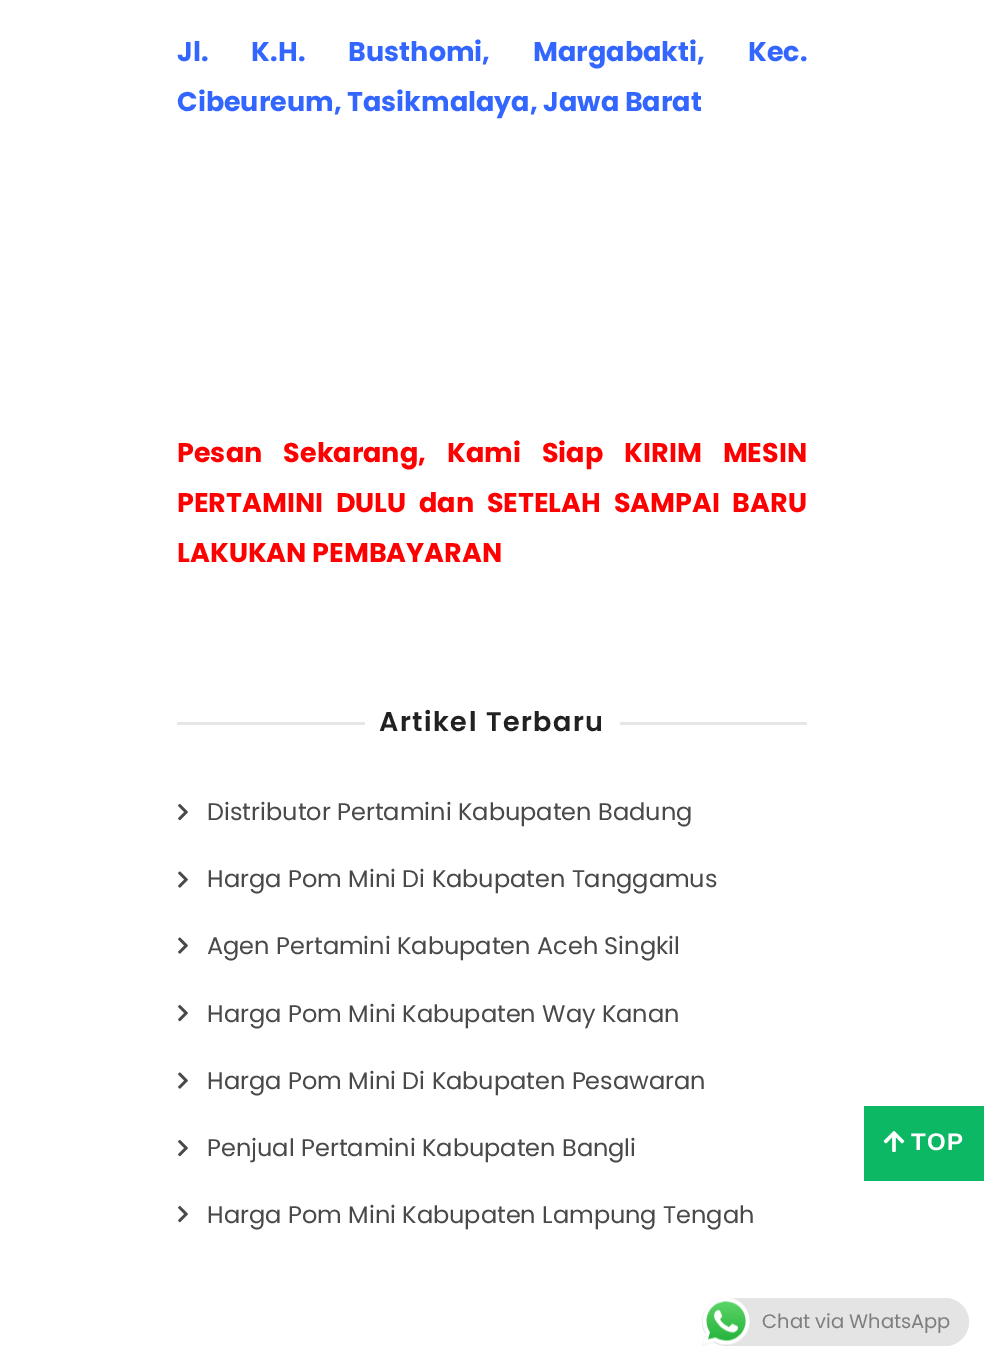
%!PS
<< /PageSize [984 1360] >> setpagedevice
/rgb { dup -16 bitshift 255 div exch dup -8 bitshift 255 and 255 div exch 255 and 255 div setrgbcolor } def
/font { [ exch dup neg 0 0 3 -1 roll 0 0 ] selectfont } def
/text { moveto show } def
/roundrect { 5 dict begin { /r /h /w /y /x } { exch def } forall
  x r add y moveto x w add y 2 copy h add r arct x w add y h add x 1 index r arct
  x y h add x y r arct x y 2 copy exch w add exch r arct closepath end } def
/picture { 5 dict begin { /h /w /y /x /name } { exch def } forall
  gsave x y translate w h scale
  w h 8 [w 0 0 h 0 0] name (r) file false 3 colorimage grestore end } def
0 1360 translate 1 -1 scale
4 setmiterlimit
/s1 { /Poppins-Bold 27 font 16#3366FF rgb } def
/s2 { /Poppins-Bold 27 font 16#FF0000 rgb } def
/s3 { /Poppins-Regular 24 font 16#494949 rgb } def
/s4 { /Poppins-Regular 19.5 font 16#7F7D7D rgb } def
16#FFFFFF rgb
0 0 984 1360 rectfill
/Poppins-Bold 27 font
16#3366FF rgb
177 61 moveto 37.5 0 32 (Jl. K.H. Busthomi, Margabakti, Kec.) widthshow
(Cibeureum, Tasikmalaya, Jawa Barat) 177 111 text
16#FF0000 rgb
177 462 moveto 15.5 0 32 (Pesan Sekarang, Kami Siap KIRIM MESIN) widthshow
177 512 moveto 7 0 32 (PERTAMINI DULU dan SETELAH SAMPAI BARU) widthshow
(LAKUKAN PEMBAYARAN) 177 562 text
16#E6E6E6 rgb
177 722 630 3 rectfill
16#FFFFFF rgb
365 722 255 3 rectfill
/Poppins-SemiBold 27 font
16#212121 rgb
379 731 moveto 1.5 0 (Artikel Terbaru) ashow
(pic1.raw) 178 804 10 17 picture
s3
(Distributor Pertamini Kabupaten Badung) 207 820 text
(pic2.raw) 178 871 10 17 picture
(Harga Pom Mini Di Kabupaten Tanggamus) 207 887 text
(pic2.raw) 178 937 10 17 picture
(Agen Pertamini Kabupaten Aceh Singkil) 207 954 text
(pic1.raw) 178 1005 10 17 picture
(Harga Pom Mini Kabupaten Way Kanan) 207 1022 text
(pic2.raw) 178 1072 10 17 picture
(Harga Pom Mini Di Kabupaten Pesawaran) 207 1089 text
(pic1.raw) 178 1140 10 17 picture
(Penjual Pertamini Kabupaten Bangli) 207 1156 text
(pic1.raw) 178 1206 10 17 picture
(Harga Pom Mini Kabupaten Lampung Tengah) 207 1223 text
16#0CB863 rgb
864 1106 120 75 rectfill
(pic3.raw) 883 1131 22 21 picture
/LiberationSans-Bold 24 font
16#FFFFFF rgb
911 1150 moveto 1.5 0 (TOP) ashow
16#E4E4E4 rgb
702 1298 267 48 24 roundrect fill
(pic4.raw) 702 1297 48 49 picture
s4
(Chat via WhatsApp) 762 1328 text
showpage
